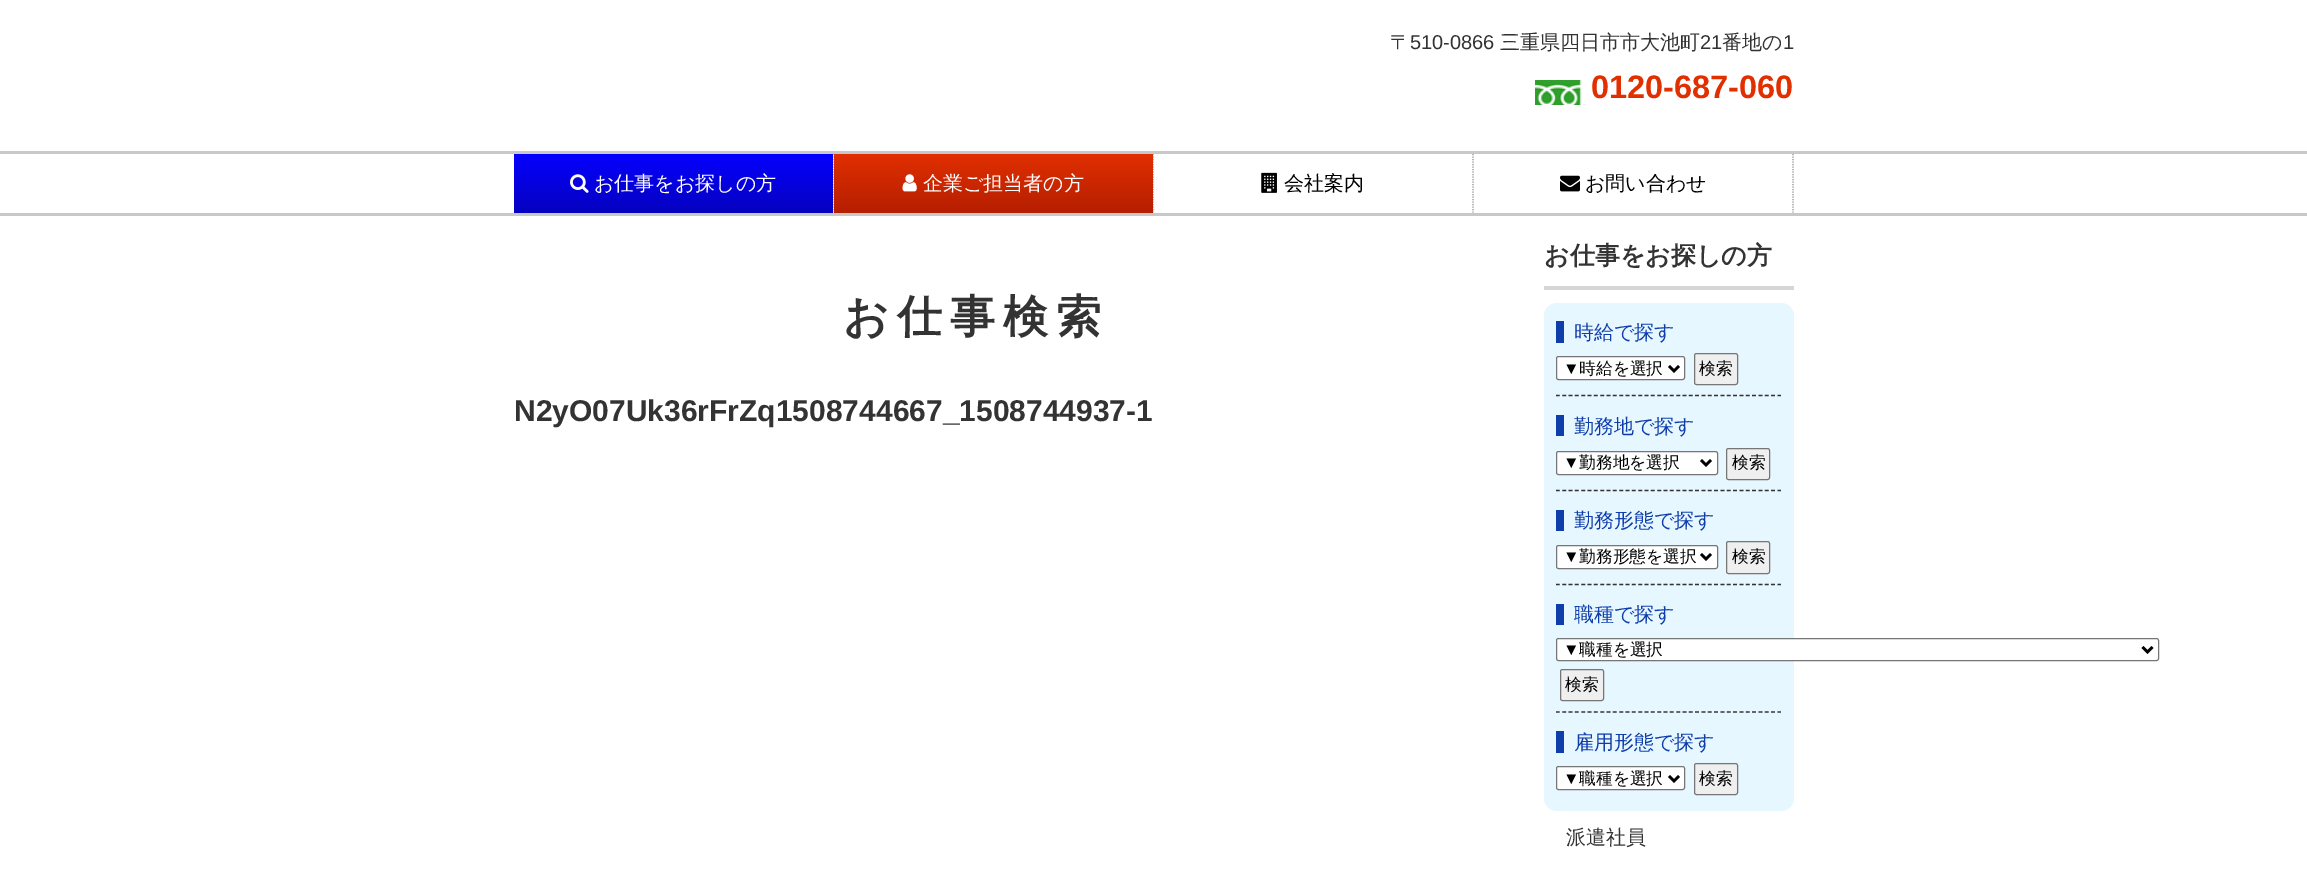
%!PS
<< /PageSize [2307 876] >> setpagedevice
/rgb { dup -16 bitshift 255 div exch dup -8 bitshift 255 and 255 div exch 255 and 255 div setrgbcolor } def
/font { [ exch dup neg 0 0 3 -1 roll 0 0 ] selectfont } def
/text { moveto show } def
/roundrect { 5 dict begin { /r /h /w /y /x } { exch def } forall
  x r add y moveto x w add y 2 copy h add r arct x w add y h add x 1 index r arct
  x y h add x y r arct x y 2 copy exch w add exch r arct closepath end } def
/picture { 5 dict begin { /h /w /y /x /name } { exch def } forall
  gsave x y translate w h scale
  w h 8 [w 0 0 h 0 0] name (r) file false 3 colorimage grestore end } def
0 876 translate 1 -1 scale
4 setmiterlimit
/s1 { /WenQuanYiZenHei-Medium 20 font 16#333333 rgb } def
/s2 { /LiberationSans-Regular 20 font 16#333333 rgb } def
/s3 { /LiberationSans-Bold 32.5 font 16#E12F00 rgb } def
/s4 { /WenQuanYiZenHei-Medium 20 font 16#FFFFFF rgb } def
/s5 { /WenQuanYiZenHei-Medium 20 font 16#000000 rgb } def
/s6 { /LiberationSans-Bold 30 font 16#333333 rgb } def
/s7 { /WenQuanYiZenHei-Bold 25 font 16#333333 rgb } def
/s8 { /WenQuanYiZenHei-Medium 20 font 16#0F3EAB rgb } def
/s9 { /LiberationSans-Regular 16.75 font 16#000000 rgb } def
/s10 { /WenQuanYiZenHei-Medium 16.75 font 16#000000 rgb } def
16#FFFFFF rgb
0 0 2307 876 rectfill
s1
(〒) 1390 49 text
s2
(510-0866) 1410 49 text
s1
(三重県四日市市大池町) 1500 49 text
s2
(21) 1700 49 text
s1
(番地の) 1722 49 text
s2
(1) 1783 49 text
(pic1.raw) 1535 80 51 25 picture
s3
(0120-687-060) 1591 98 text
16#C8C8C8 rgb
0 151 2307 3 rectfill
0 213 2307 3 rectfill
16#999999 rgb
1.2 setlinewidth
[1.25 1.25] 0 setdash
833 154 moveto 833 212.5 lineto stroke
gsave 514 154 moveto 833 154 lineto 833 213 lineto 514 213 lineto closepath clip newpath
<< /ShadingType 2 /ColorSpace /DeviceRGB /Coords [673 154 673 213] /Extend [true true] /Function << /FunctionType 2 /Domain [0 1] /C0 [0.02 0 0.996] /C1 [0.02 0.008 0.749] /N 1 >> >> shfill grestore
(pic2.raw) 570 174 19 19 picture
s4
(お仕事をお探しの方) 594 190 text
16#999999 rgb
1153 154 moveto 1153 212.5 lineto stroke
gsave 834 154 moveto 1153 154 lineto 1153 213 lineto 834 213 lineto closepath clip newpath
<< /ShadingType 2 /ColorSpace /DeviceRGB /Coords [993 154 993 213] /Extend [true true] /Function << /FunctionType 2 /Domain [0 1] /C0 [0.882 0.184 0] /C1 [0.71 0.118 0] /N 1 >> >> shfill grestore
(pic3.raw) 902 174 15 18 picture
s4
(企業ご担当者の方) 923 190 text
16#999999 rgb
1473 154 moveto 1473 212.5 lineto stroke
(pic4.raw) 1261 172 16 21 picture
s5
(会社案内) 1284 190 text
16#999999 rgb
1793 154 moveto 1793 212.5 lineto stroke
(pic5.raw) 1560 175 20 17 picture
s5
(お問い合わせ) 1585 190 text
/WenQuanYiZenHei-Bold 45 font
16#333333 rgb
843 332 moveto 8 0 (お仕事検索) ashow
s6
(N2yO07Uk36rFrZq1508744667_1508744937-1) 514 421 text
16#D6D6D6 rgb
1544 286 250 4 rectfill
s7
(お仕事をお探しの方) 1544 264 text
16#E6F7FF rgb
1544 303 250 508 13 roundrect fill
16#333333 rgb
[3.75 2.58] 0 setdash
1556 395.5 moveto 1781 395.5 lineto stroke
s8
(時給で探す) 1574 339 text
1556 321 8 22 rectfill
16#FFFFFF rgb
1556.5 356.5 128 23 2 roundrect gsave fill grestore
16#767676 rgb
1 setlinewidth
[] 0 setdash
stroke
16#000000 rgb
2.5 setlinewidth
1669 366 moveto 1674 371 lineto 1679 366 lineto stroke
s9
(▼) 1563 374 text
s10
(時給を選択) 1579 374 text
16#EFEFEF rgb
1694.5 353.5 43 31 2 roundrect gsave fill grestore
16#767676 rgb
1 setlinewidth
stroke
s10
(検索) 1699 374 text
16#333333 rgb
1.2 setlinewidth
[3.75 2.58] 0 setdash
1556 490.5 moveto 1781 490.5 lineto stroke
s8
(勤務地で探す) 1574 433 text
1556 415 8 21 rectfill
16#FFFFFF rgb
1556.5 451.5 161 23 2 roundrect gsave fill grestore
16#767676 rgb
1 setlinewidth
[] 0 setdash
stroke
16#000000 rgb
2.5 setlinewidth
1701 460 moveto 1706 465 lineto 1711 460 lineto stroke
s9
(▼) 1563 468 text
s10
(勤務地を選択) 1579 468 text
16#EFEFEF rgb
1726.5 448.5 43 31 2 roundrect gsave fill grestore
16#767676 rgb
1 setlinewidth
stroke
s10
(検索) 1732 468 text
16#333333 rgb
1.2 setlinewidth
[3.75 2.58] 0 setdash
1556 584.5 moveto 1781 584.5 lineto stroke
s8
(勤務形態で探す) 1574 527 text
1556 510 8 21 rectfill
16#FFFFFF rgb
1556.5 545.5 161 23 2 roundrect gsave fill grestore
16#767676 rgb
1 setlinewidth
[] 0 setdash
stroke
16#000000 rgb
2.5 setlinewidth
1701 554 moveto 1706 559 lineto 1711 554 lineto stroke
s9
(▼) 1563 562 text
s10
(勤務形態を選択) 1579 562 text
16#EFEFEF rgb
1726.5 541.5 43 32 2 roundrect gsave fill grestore
16#767676 rgb
1 setlinewidth
stroke
s10
(検索) 1732 562 text
16#333333 rgb
1.2 setlinewidth
[3.75 2.58] 0 setdash
1556 712 moveto 1781 712 lineto stroke
s8
(職種で探す) 1574 621 text
1556 604 8 21 rectfill
16#FFFFFF rgb
1556.5 638.5 602 22 2 roundrect gsave fill grestore
16#767676 rgb
1 setlinewidth
[] 0 setdash
stroke
16#000000 rgb
2.5 setlinewidth
2142.5 647 moveto 2147.5 652 lineto 2152.5 647 lineto stroke
s9
(▼) 1563 655 text
s10
(職種を選択) 1579 655 text
16#EFEFEF rgb
1560.5 669.5 43 31 2 roundrect gsave fill grestore
16#767676 rgb
1 setlinewidth
stroke
s10
(検索) 1565 690 text
s8
(雇用形態で探す) 1574 749 text
1556 731 8 22 rectfill
16#FFFFFF rgb
1556.5 766.5 128 23 2 roundrect gsave fill grestore
16#767676 rgb
stroke
16#000000 rgb
2.5 setlinewidth
1669 776 moveto 1674 781 lineto 1679 776 lineto stroke
s9
(▼) 1563 784 text
s10
(職種を選択) 1579 784 text
16#EFEFEF rgb
1694.5 763.5 43 31 2 roundrect gsave fill grestore
16#767676 rgb
1 setlinewidth
stroke
s10
(検索) 1699 784 text
s1
(派遣社員) 1566 844 text
showpage
